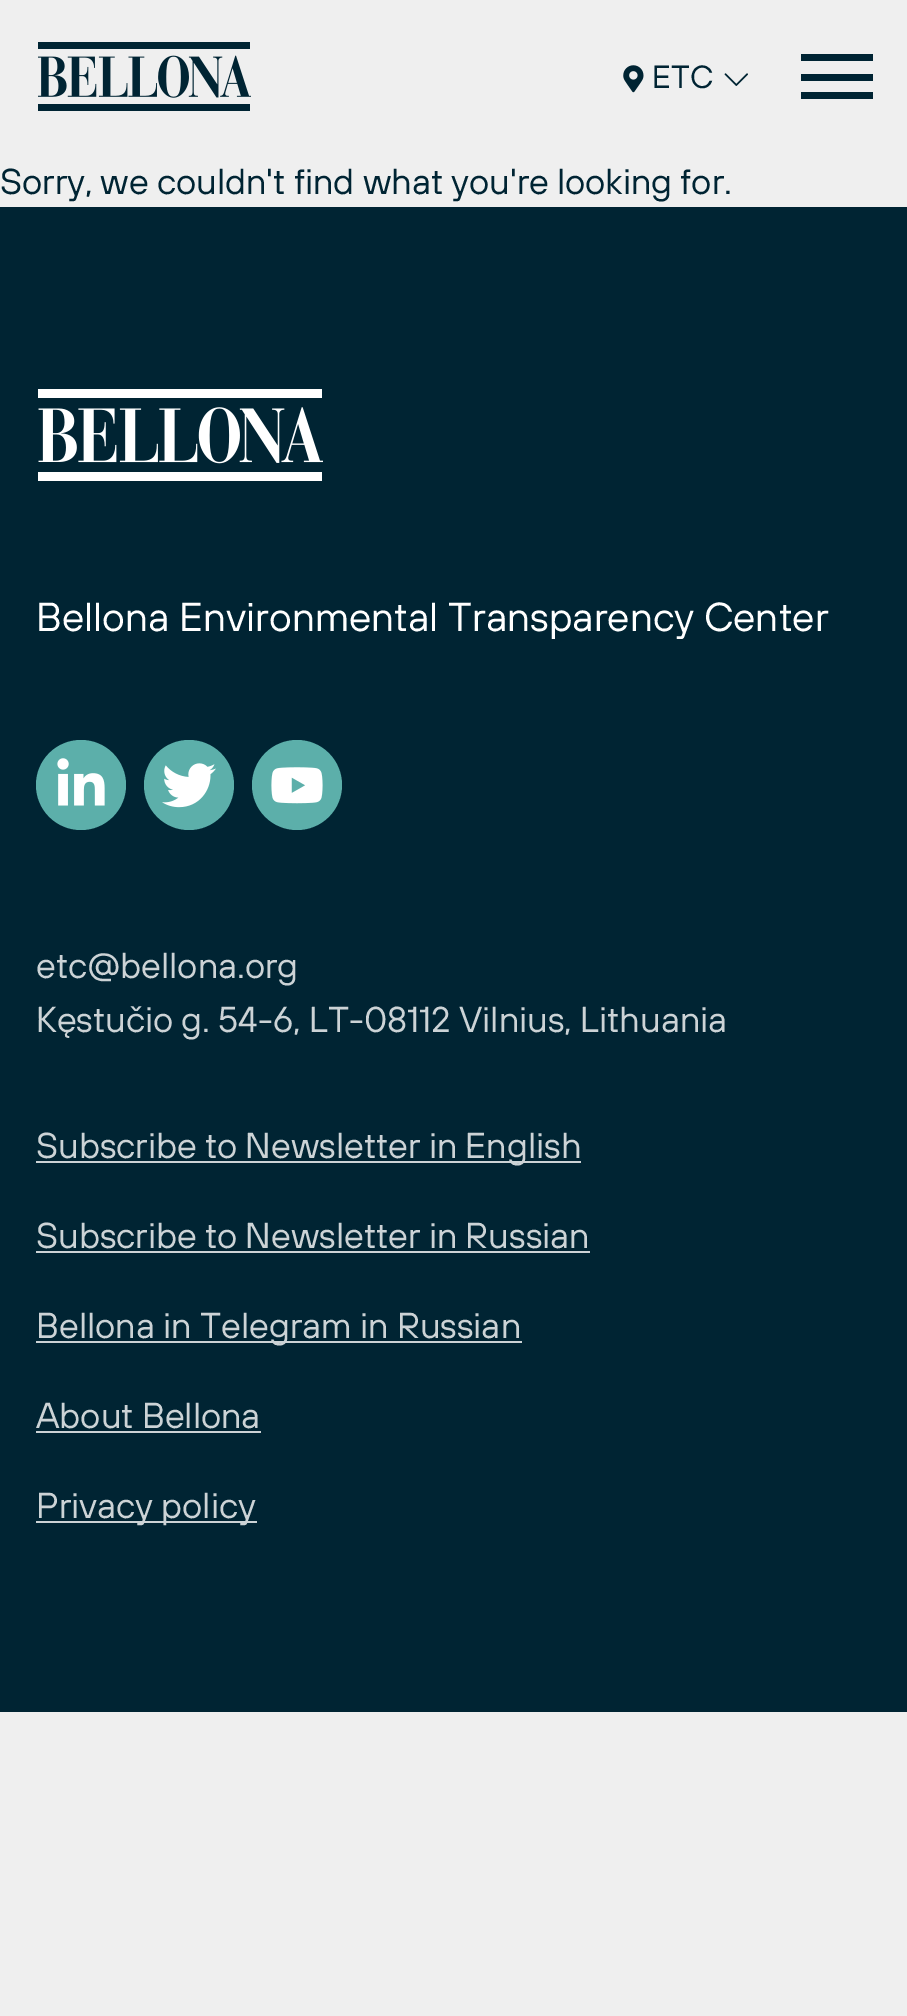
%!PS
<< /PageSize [907 2016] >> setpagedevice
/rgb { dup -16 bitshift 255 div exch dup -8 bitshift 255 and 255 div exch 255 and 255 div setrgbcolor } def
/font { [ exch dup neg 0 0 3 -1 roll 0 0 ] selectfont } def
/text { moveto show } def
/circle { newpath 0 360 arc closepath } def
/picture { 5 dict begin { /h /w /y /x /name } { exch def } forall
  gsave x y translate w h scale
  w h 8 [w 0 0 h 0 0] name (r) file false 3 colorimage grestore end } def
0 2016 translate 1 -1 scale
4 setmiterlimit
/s1 { /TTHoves-Regular 32 font 16#002433 rgb } def
/s2 { /TTHoves-Regular 36 font 16#002433 rgb } def
/s3 { /TTHoves-Regular 40.5 font 16#FFFFFF rgb } def
/s4 { /TTHoves-Regular 36 font 16#CCD3D6 rgb } def
16#EFEFEF rgb
0 0 907 2016 rectfill
(pic1.raw) 38 42 213 69 picture
(pic2.raw) 623 65 21 28 picture
s1
(ETC) 652 88 text
(pic3.raw) 724 73 24 13 picture
801 54 72 7 rectfill
801 74 72 7 rectfill
801 92 72 7 rectfill
s2
(Sorry, we couldn't find what you're looking for.) 0 194 text
0 207 907 1505 rectfill
(pic4.raw) 38 389 285 92 picture
s3
(Bellona Environmental Transparency Center) 36 631 text
16#5CAFAA rgb
81 785 45 circle fill
(pic5.raw) 57 758 48 48 picture
189 785 45 circle fill
(pic6.raw) 162 763 54 45 picture
297 785 45 circle fill
(pic7.raw) 271 767 52 37 picture
s4
(etc@bellona.org) 36 978 text
(Kęstučio g. 54-6, LT-08112 Vilnius, Lithuania) 36 1032 text
36 1161 545 2 rectfill
(Subscribe to Newsletter in English) 36 1158 text
(Subscribe to Newsletter in Russian) 36 1248 text
36 1251 554 2 rectfill
36 1341 486 2 rectfill
(Bellona in Telegram in Russian) 36 1338 text
(About Bellona) 36 1428 text
36 1431 225 2 rectfill
36 1521 221 2 rectfill
(Privacy policy) 36 1518 text
showpage
